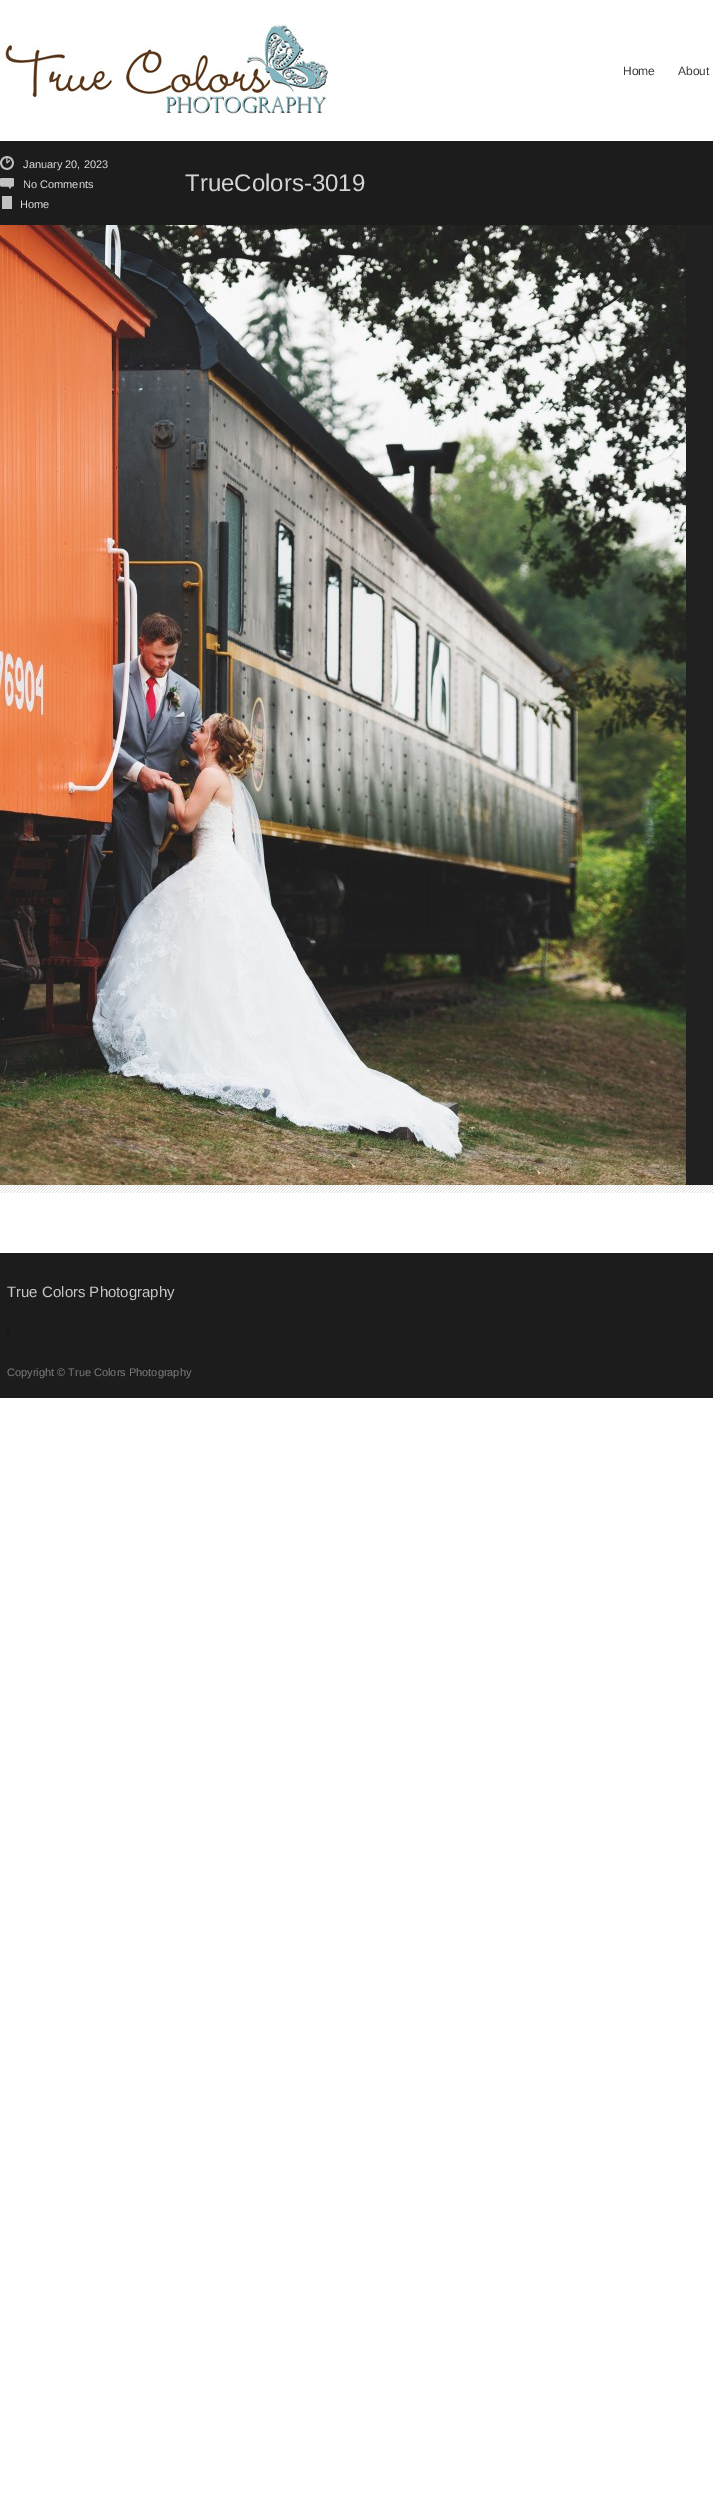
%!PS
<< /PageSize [713 2511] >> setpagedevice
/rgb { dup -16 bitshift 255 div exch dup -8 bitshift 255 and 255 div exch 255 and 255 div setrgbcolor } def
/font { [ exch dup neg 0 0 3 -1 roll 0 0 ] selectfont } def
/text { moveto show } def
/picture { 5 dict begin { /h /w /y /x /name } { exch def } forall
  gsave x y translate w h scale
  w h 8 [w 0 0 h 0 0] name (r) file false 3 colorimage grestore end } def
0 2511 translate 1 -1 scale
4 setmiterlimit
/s1 { /LiberationSans-Regular 12 font 16#3B3B3B rgb } def
/s2 { /LiberationSans-Regular 11 font 16#DDDDDD rgb } def
/s3 { /LiberationSans-Regular 24 font 16#D4D4D4 rgb } def
/s4 { /LiberationSans-Regular 15 font 16#C6C6C6 rgb } def
/s5 { /LiberationSans-Regular 11 font 16#7C7C7C rgb } def
16#FFFFFF rgb
0 0 713 2511 rectfill
(pic1.raw) 0 19 328 96 picture
s1
(Home) 623 75 text
(About) 678 75 text
16#1C1C1C rgb
0 141 713 84 rectfill
(pic2.raw) 0 156 14 14 picture
s2
(January 20, 2023) 23 168 text
(pic3.raw) 0 178 14 11 picture
(No Comments) 23 188 text
16#C1C1C1 rgb
2 196 10 13 rectfill
s2
(Home) 20 208 text
s3
(TrueColors-3019) 185 191 text
16#212121 rgb
686 225 27 960 rectfill
(pic4.raw) 0 225 686 960 picture
(pic5.raw) 0 1185 713 8 picture
16#1C1C1C rgb
0 1253 713 145 rectfill
s4
(True Colors Photography) 7 1297 text
16#18181E rgb
7 1325 2 16 rectfill
s5
(Copyright © True Colors Photography) 7 1376 text
showpage
